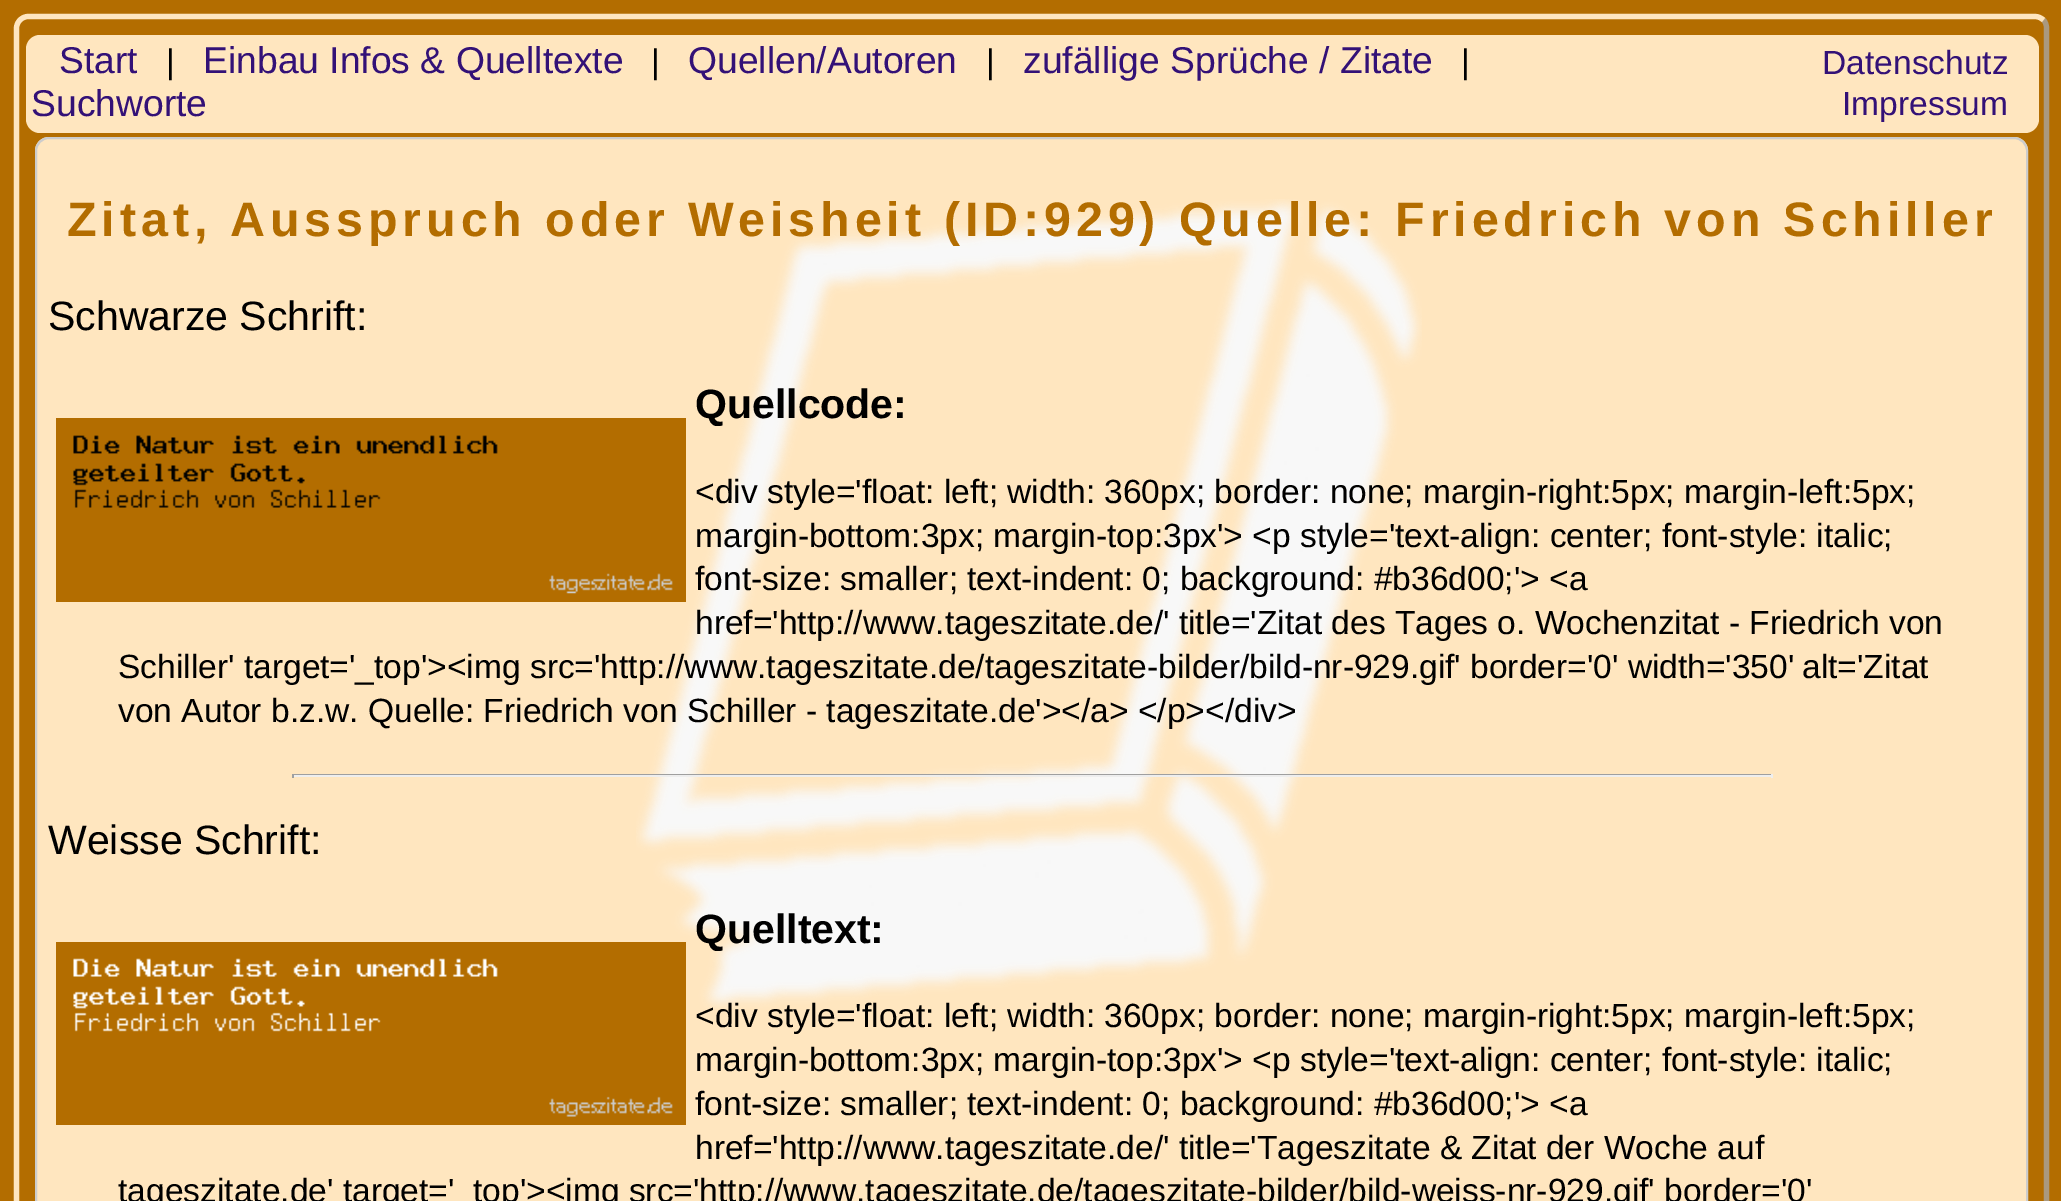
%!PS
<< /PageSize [2061 1201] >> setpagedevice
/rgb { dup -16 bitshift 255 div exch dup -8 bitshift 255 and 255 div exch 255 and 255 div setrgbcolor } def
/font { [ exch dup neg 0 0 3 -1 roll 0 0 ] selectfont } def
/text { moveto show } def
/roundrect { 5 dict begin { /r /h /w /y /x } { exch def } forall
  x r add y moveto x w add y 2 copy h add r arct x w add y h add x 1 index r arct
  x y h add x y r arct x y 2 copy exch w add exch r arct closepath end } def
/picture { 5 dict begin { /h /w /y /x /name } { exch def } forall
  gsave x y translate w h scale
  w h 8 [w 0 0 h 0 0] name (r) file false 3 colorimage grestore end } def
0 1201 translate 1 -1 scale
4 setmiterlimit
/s1 { /LiberationSans-Regular 37.25 font 16#331177 rgb } def
/s2 { /LiberationSans-Regular 34 font 16#000000 rgb } def
/s3 { /LiberationSans-Regular 33.55 font 16#331177 rgb } def
/s4 { /LiberationSans-Regular 41 font 16#000000 rgb } def
/s5 { /LiberationSans-Bold 41 font 16#000000 rgb } def
/s6 { /LiberationSans-Regular 33.55 font 16#000000 rgb } def
16#B36D00 rgb
0 0 2061 1201 rectfill
16#AA997F rgb
5.2 setlinewidth
2043.5 20 moveto 2045.5 22 2046.5 25 2046.5 28 curveto 2046.5 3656 lineto 2046.5 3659 2045.5 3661.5 2043.5 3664 curveto 2041 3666 2038.5 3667 2035 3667 curveto 28 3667 lineto 25 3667 22 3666 20 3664 curveto stroke
16#FFE6BF rgb
20 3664 moveto 18 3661.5 16.5 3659 16.5 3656 curveto 16.5 28 lineto 16.5 25 18 22 20 20 curveto 22 18 25 16.5 28 16.5 curveto 2035 16.5 lineto 2038.5 16.5 2041 18 2043.5 20 curveto stroke
26 35 2013 98 14 roundrect fill
s1
(Start) 59 73 text
s2
(|) 166 73 text
s1
(Einbau Infos & Quelltexte) 203 73 text
s2
(|) 651 73 text
s1
(Quellen/Autoren) 688 73 text
s2
(|) 986 73 text
s1
(zufällige Sprüche / Zitate) 1023 73 text
s2
(|) 1461 73 text
s1
(Suchworte) 31 116 text
s3
(Datenschutz) 1822 74 text
(Impressum) 1842 115 text
16#FFE6BF rgb
35 137 1993 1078 14 roundrect fill
(pic1.raw) 636 199 786 810 picture
16#CCCCCC rgb
2 setlinewidth
36 138 1991 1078 13 roundrect stroke
/LiberationSans-Bold 48.45 font
16#B36D00 rgb
67 236 moveto 4.85 0 (Zitat, Ausspruch oder Weisheit) ashow
944 236 moveto 4.85 0 (\(ID:929\) Quelle: Friedrich von Schiller) ashow
s4
(Schwarze Schrift:) 48 330 text
s5
(Quellcode:) 695 418 text
16#B36D00 rgb
56 418 630 184 rectfill
(pic2.raw) 73 435 600 159 picture
s6
(<div style='float: left; width: 360px; border: none; margin-right:5px; margin-left:5px;) 695 503 text
(margin-bottom:3px; margin-top:3px'> <p style='text-align: center; font-style: italic;) 695 547 text
(font-size: smaller; text-indent: 0; background: #b36d00;'> <a) 695 590 text
(href='http://www.tageszitate.de/' title='Zitat des Tages o. Wochenzitat - Friedrich von) 695 634 text
(Schiller' target='_top'><img src='http://www.tageszitate.de/tageszitate-bilder/bild-nr-929.gif' border='0' width='350') 118 678 text
(alt='Zitat) 1802 678 text
(von Autor b.z.w. Quelle: Friedrich von Schiller - tageszitate.de'></a> </p></div>) 118 722 text
16#9F9F9F rgb
292 774 1481 1 rectfill
16#EEEEEE rgb
1771 774 2 4 rectfill
292 775 1481 2 rectfill
16#9F9F9F rgb
292 774 2 4 rectfill
s4
(Weisse Schrift:) 48 854 text
s5
(Quelltext:) 695 943 text
16#B36D00 rgb
56 942 630 183 rectfill
(pic3.raw) 73 958 600 159 picture
s6
(<div style='float: left; width: 360px; border: none; margin-right:5px; margin-left:5px;) 695 1027 text
(margin-bottom:3px; margin-top:3px'> <p style='text-align: center; font-style: italic;) 695 1071 text
(font-size: smaller; text-indent: 0; background: #b36d00;'> <a) 695 1115 text
(href='http://www.tageszitate.de/' title='Tageszitate & Zitat der Woche auf) 695 1159 text
(tageszitate.de' target='_top'><img src='http://www.tageszitate.de/tageszitate-bilder/bild-weiss-nr-929.gif' border='0') 118 1202 text
showpage
